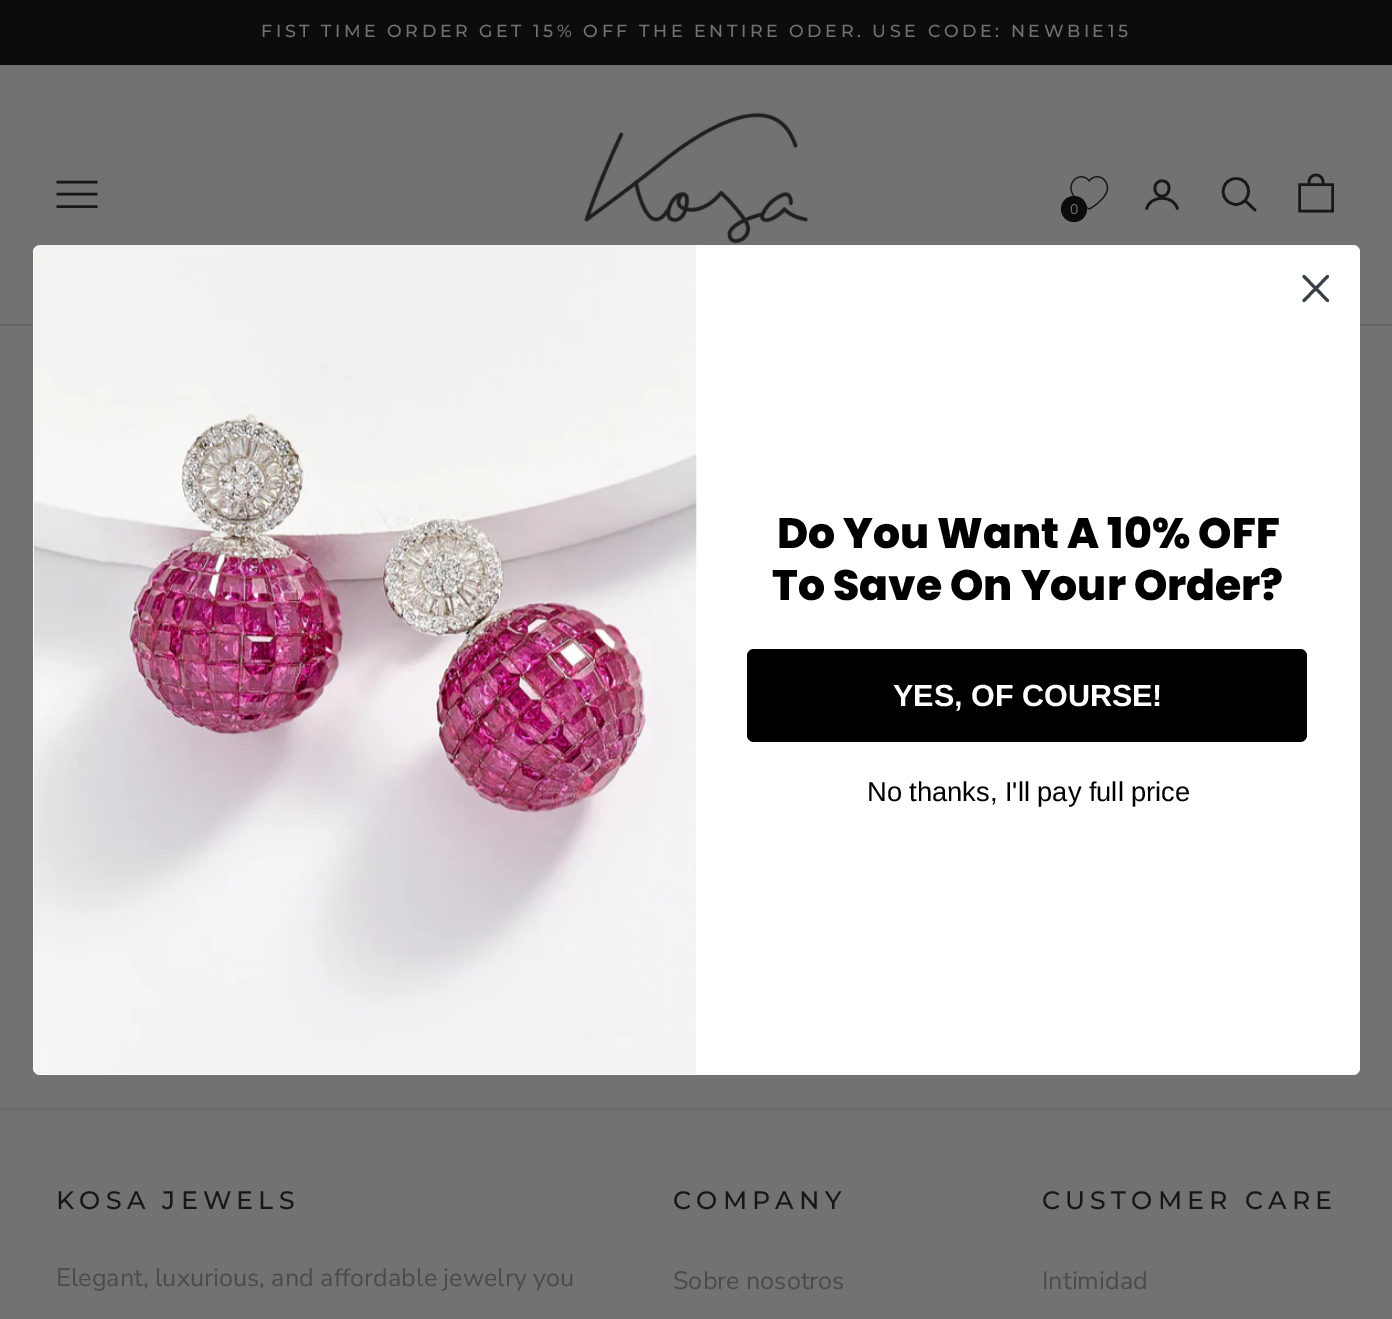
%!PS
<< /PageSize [1392 1319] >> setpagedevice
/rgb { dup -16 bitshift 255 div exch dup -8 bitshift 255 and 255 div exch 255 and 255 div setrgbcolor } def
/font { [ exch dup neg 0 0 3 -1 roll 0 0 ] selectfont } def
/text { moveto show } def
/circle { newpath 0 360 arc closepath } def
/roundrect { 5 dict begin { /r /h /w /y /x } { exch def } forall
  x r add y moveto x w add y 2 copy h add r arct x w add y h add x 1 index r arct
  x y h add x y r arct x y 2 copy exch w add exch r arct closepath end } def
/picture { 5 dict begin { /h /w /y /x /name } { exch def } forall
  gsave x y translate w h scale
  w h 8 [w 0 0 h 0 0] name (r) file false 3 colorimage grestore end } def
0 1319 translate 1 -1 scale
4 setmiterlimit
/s1 { /NunitoSans-Regular 14 font 16#727272 rgb } def
/s2 { /Poppins-ExtraBold 42.5 font 16#000000 rgb } def
/s3 { /LiberationSans-Bold 30.5 font 16#FFFFFF rgb } def
/s4 { /LiberationSans-Regular 27.25 font 16#000000 rgb } def
/s5 { /NunitoSans-Regular 25.2 font 16#4B4B4B rgb } def
16#727272 rgb
0 0 1392 1319 rectfill
16#0C0C0C rgb
0 0 1392 65 rectfill
/Montserrat-Medium 17.5 font
16#727272 rgb
261 37 moveto 3.5 0 (FIST TIME ORDER GET 15% OFF THE ENTIRE ODER. USE CODE: NEWBIE15) ashow
16#646464 rgb
0 324 1392 2 rectfill
16#171717 rgb
2.6 setlinewidth
2 setlinecap
58 206.5 moveto 96 206.5 lineto 58 194 moveto 96 194 lineto 58 182 moveto 96 182 lineto stroke
(pic1.raw) 584 112 224 133 picture
(pic2.raw) 1070 176 39 34 picture
16#0C0C0C rgb
1074 209 13 circle fill
s1
(0) 1070 214 text
16#171717 rgb
1 setlinecap
1 setlinejoin
1169 188.5 moveto 1168.5 200 1153.5 198 1155 187 curveto 1156 178 1170 179 1169 188.5 curveto closepath stroke
0 setlinecap
0 setlinejoin
1146.5 209.5 moveto 1149 194.5 1175 194.5 1177.5 209.5 curveto stroke
1236 178.5 moveto 1223 178.5 1218 196 1229.5 202.5 curveto 1231.5 203.5 1234 204.5 1236 204.5 curveto 1253 203.5 1252.5 178.5 1236 178.5 curveto closepath stroke
1 setlinecap
1245.5 201 moveto 1255 210 lineto stroke
0 setlinecap
1332.5 211 moveto 1332.5 184.5 lineto 1299.5 184.5 lineto 1299.5 211 lineto closepath 1309 184 moveto 1309 182 lineto 1309 178 1312 175 1316 175 curveto 1320 175 1323 178 1323 182 curveto 1323 184 lineto stroke
16#FFFFFF rgb
33 245 1327 830 7 roundrect fill
16#373F47 rgb
3 setlinewidth
1 setlinecap
1 setlinejoin
1304 276.5 moveto 1327.5 300.5 lineto 1304 300.5 moveto 1327.5 276.5 lineto closepath stroke
(pic3.raw) 34 245 663 829 picture
s2
(Do You Want A 10% OFF) 777 548 text
(To Save On Your Order?) 772 600 text
747 649 560 93 7 roundrect fill
s3
(YES, OF COURSE!) 893 706 text
s4
(No thanks, I'll pay full price) 867 801 text
16#696969 rgb
0 1108 1392 2 rectfill
/Montserrat-Medium 25.2 font
16#171717 rgb
56 1209 moveto 5.25 0 (KOSA JEWELS) ashow
s5
(Elegant, luxurious, and affordable jewelry you) 56 1286 text
/Montserrat-Medium 25.2 font
16#171717 rgb
673 1209 moveto 5.25 0 (COMPANY) ashow
s5
(Sobre nosotros) 673 1289 text
/Montserrat-Medium 25.2 font
16#171717 rgb
1042 1209 moveto 5.25 0 (CUSTOMER CARE) ashow
s5
(Intimidad) 1042 1289 text
showpage
